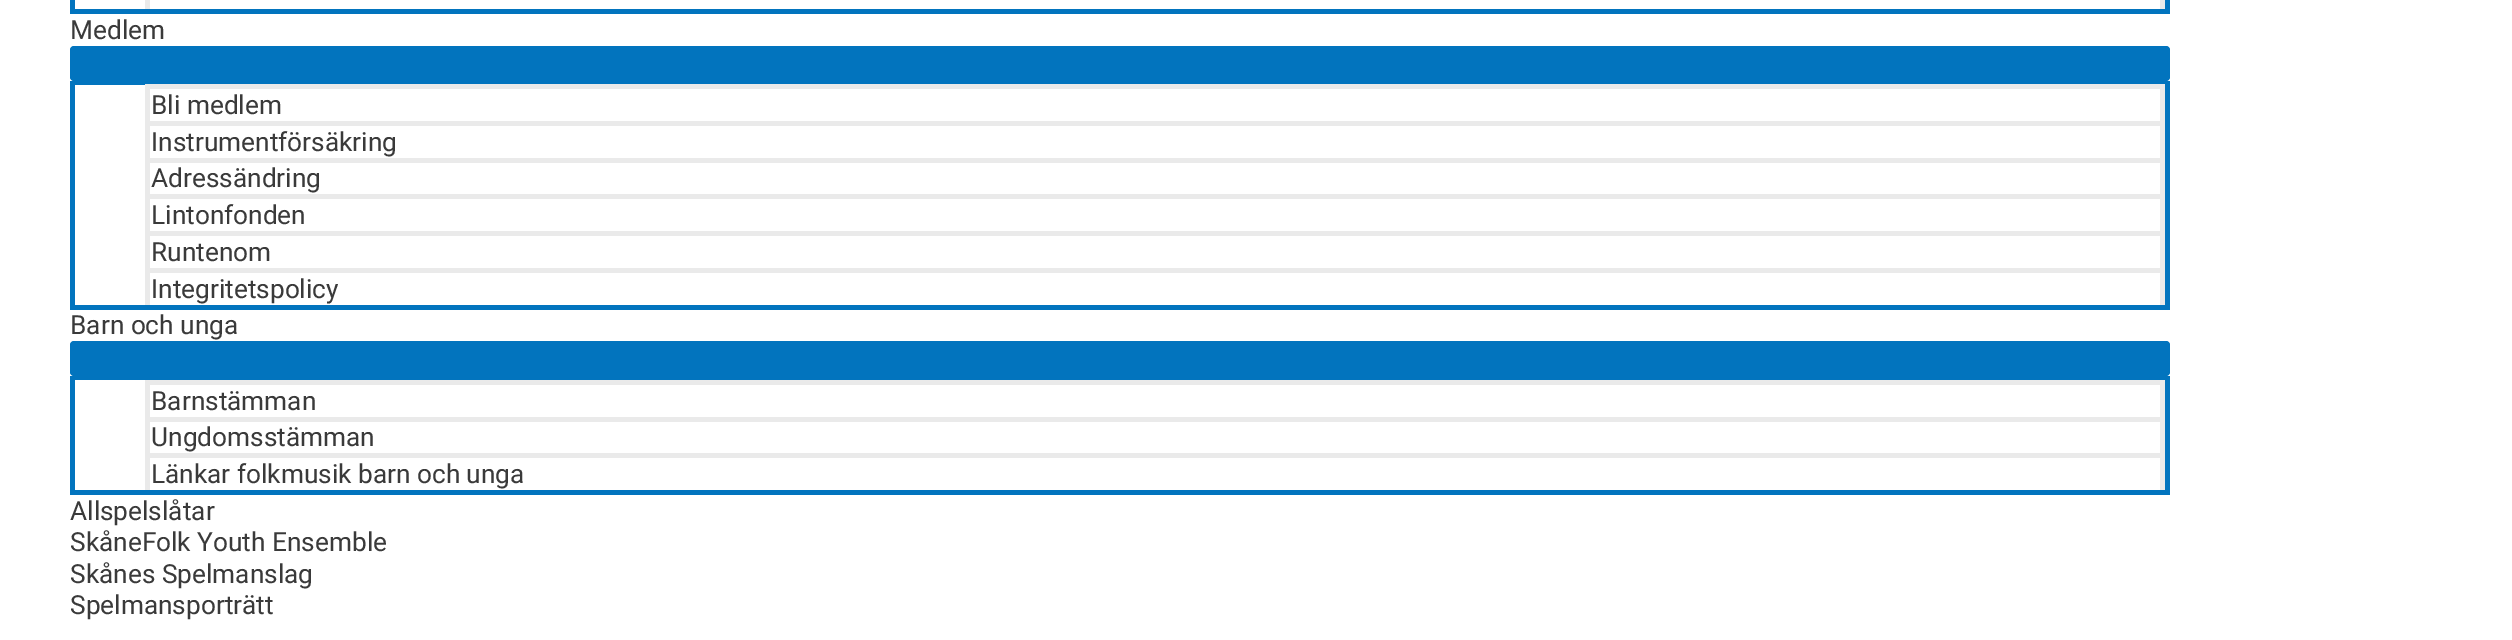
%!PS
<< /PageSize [2512 640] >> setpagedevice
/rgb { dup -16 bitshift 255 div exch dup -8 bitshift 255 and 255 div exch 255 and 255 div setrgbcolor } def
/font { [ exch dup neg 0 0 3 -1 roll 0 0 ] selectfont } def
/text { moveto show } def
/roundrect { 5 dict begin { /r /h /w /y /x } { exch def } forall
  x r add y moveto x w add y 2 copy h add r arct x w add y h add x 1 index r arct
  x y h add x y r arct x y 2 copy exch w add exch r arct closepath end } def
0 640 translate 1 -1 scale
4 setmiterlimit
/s1 { /Roboto-Regular 26.25 font 16#3A3A3A rgb } def
16#FFFFFF rgb
0 0 2512 640 rectfill
16#0274BE rgb
2165 0 5 14 rectfill
70 9 2100 5 rectfill
70 0 5 14 rectfill
16#EAEAEA rgb
2160 0 5 9 rectfill
145 0 5 9 rectfill
s1
(Medlem) 70 39 text
16#0274BE rgb
70 46 2100 35 4 roundrect fill
70 81 2100 4 rectfill
2165 81 5 229 rectfill
70 305 2100 5 rectfill
70 81 5 229 rectfill
16#EAEAEA rgb
145 84 2020 5 rectfill
2160 84 5 37 rectfill
145 84 5 37 rectfill
s1
(Bli medlem) 151 114 text
16#EAEAEA rgb
145 121 2020 5 rectfill
2160 121 5 37 rectfill
145 121 5 37 rectfill
s1
(Instrumentförsäkring) 151 151 text
16#EAEAEA rgb
145 158 2020 5 rectfill
2160 158 5 36 rectfill
145 158 5 36 rectfill
s1
(Adressändring) 151 187 text
16#EAEAEA rgb
145 194 2020 5 rectfill
2160 194 5 37 rectfill
145 194 5 37 rectfill
s1
(Lintonfonden) 151 224 text
16#EAEAEA rgb
145 231 2020 5 rectfill
2160 231 5 37 rectfill
145 231 5 37 rectfill
s1
(Runtenom) 151 261 text
16#EAEAEA rgb
145 268 2020 5 rectfill
2160 268 5 37 rectfill
145 268 5 37 rectfill
s1
(Integritetspolicy) 151 298 text
(Barn och unga) 70 334 text
16#0274BE rgb
70 341 2100 35 4 roundrect fill
70 376 2100 4 rectfill
2165 376 5 119 rectfill
70 490 2100 5 rectfill
70 376 5 119 rectfill
16#EAEAEA rgb
145 380 2020 5 rectfill
2160 380 5 37 rectfill
145 380 5 37 rectfill
s1
(Barnstämman) 151 410 text
16#EAEAEA rgb
145 417 2020 5 rectfill
2160 417 5 36 rectfill
145 417 5 36 rectfill
s1
(Ungdomsstämman) 151 446 text
16#EAEAEA rgb
145 453 2020 5 rectfill
2160 453 5 37 rectfill
145 453 5 37 rectfill
s1
(Länkar folkmusik barn och unga) 151 483 text
(Allspelslåtar) 70 520 text
(SkåneFolk Youth Ensemble) 70 551 text
(Skånes Spelmanslag) 70 583 text
(Spelmansporträtt) 70 614 text
showpage
